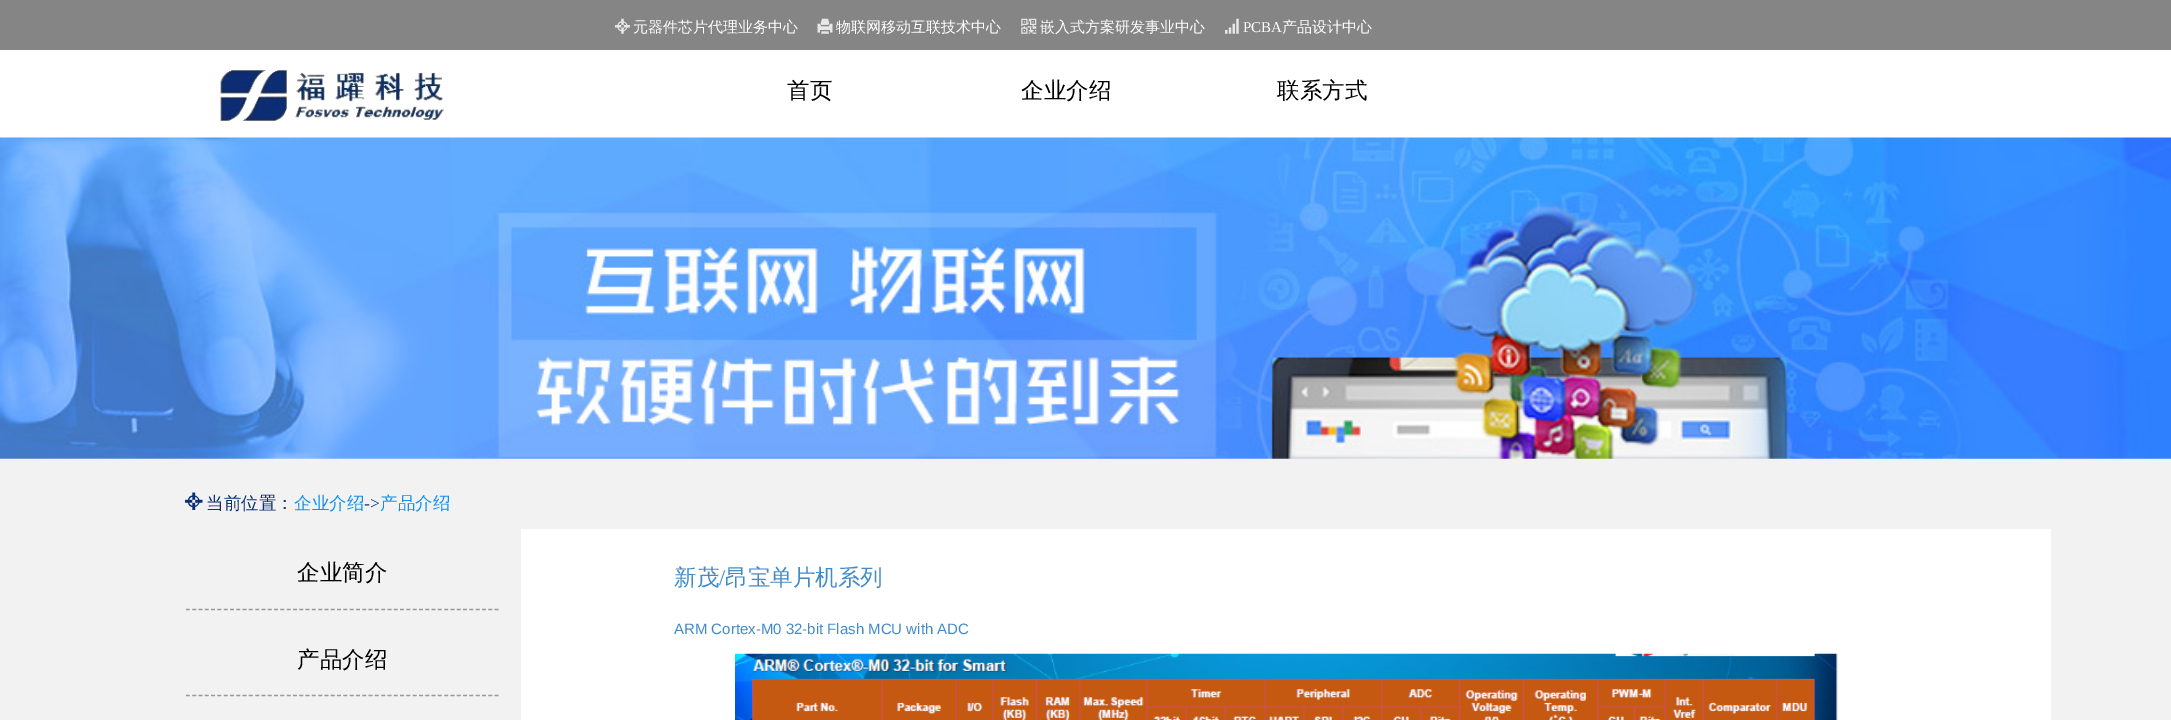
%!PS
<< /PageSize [2171 720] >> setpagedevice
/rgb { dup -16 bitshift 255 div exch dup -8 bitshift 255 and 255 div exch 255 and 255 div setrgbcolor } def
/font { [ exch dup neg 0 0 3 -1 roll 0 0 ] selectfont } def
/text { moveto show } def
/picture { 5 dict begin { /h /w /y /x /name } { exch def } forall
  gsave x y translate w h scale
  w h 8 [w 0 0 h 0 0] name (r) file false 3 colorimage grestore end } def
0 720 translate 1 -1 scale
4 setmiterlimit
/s1 { /WenQuanYiZenHei-Medium 15 font 16#FFFFFF rgb } def
/s2 { /LiberationSerif-Regular 15 font 16#FFFFFF rgb } def
/s3 { /WenQuanYiZenHei-Medium 22.5 font 16#000000 rgb } def
/s4 { /WenQuanYiZenHei-Medium 17.5 font 16#0B2E74 rgb } def
/s5 { /WenQuanYiZenHei-Medium 17.5 font 16#108FEA rgb } def
/s6 { /LiberationSerif-Regular 17.5 font 16#0B2E74 rgb } def
/s7 { /WenQuanYiZenHei-Medium 22.5 font 16#428BCA rgb } def
/s8 { /LiberationSerif-Regular 22.5 font 16#428BCA rgb } def
/s9 { /LiberationSans-Regular 15 font 16#428BCA rgb } def
16#FFFFFF rgb
0 0 2171 720 rectfill
16#858585 rgb
0 0 2171 50 rectfill
(pic1.raw) 615 18 15 16 picture
s1
(元器件芯片代理业务中心) 633 32 text
(pic2.raw) 817 18 16 16 picture
(物联网移动互联技术中心) 836 32 text
(pic3.raw) 1021 18 16 16 picture
(嵌入式方案研发事业中心) 1040 32 text
(pic4.raw) 1225 18 14 16 picture
s2
(PCBA) 1243 32 text
s1
(产品设计中心) 1282 32 text
(pic5.raw) 220 70 224 51 picture
s3
(首页) 787 98 text
(企业介绍) 1021 98 text
(联系方式) 1277 98 text
(pic6.raw) 0 137 2171 322 picture
16#F2F2F2 rgb
0 459 2171 261 rectfill
(pic7.raw) 185 492 18 18 picture
s4
(当前位置：) 206 509 text
s5
(企业介绍) 294 509 text
s6
(->) 364 509 text
s5
(产品介绍) 380 509 text
s3
(企业简介) 297 580 text
16#999999 rgb
1.2 setlinewidth
[3.75 2.55] 0 setdash
186 609.5 moveto 499 609.5 lineto stroke
s3
(产品介绍) 297 667 text
16#999999 rgb
186 695.5 moveto 499 695.5 lineto stroke
16#FFFFFF rgb
521 529 1530 191 rectfill
s7
(新茂) 674 585 text
s8
(/) 719 585 text
s7
(昂宝单片机系列) 725 585 text
s9
(ARM Cortex-M0 32-bit Flash MCU with ADC) 674 634 text
(pic8.raw) 735 653 1103 67 picture
showpage
